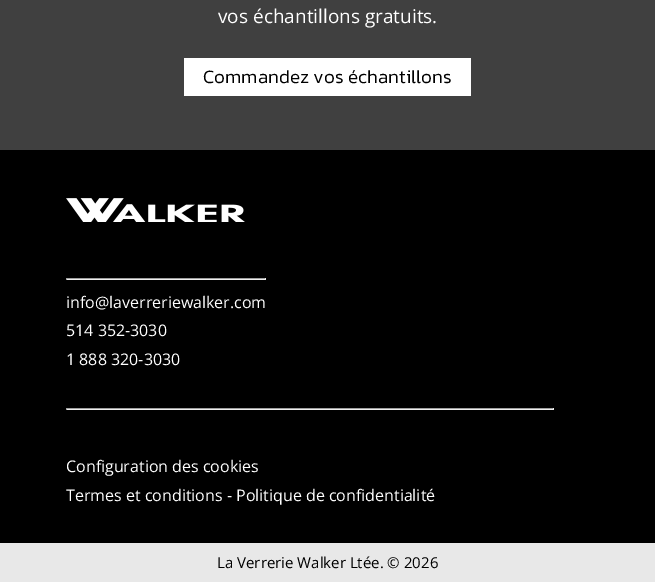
%!PS
<< /PageSize [655 582] >> setpagedevice
/rgb { dup -16 bitshift 255 div exch dup -8 bitshift 255 and 255 div exch 255 and 255 div setrgbcolor } def
/font { [ exch dup neg 0 0 3 -1 roll 0 0 ] selectfont } def
/text { moveto show } def
/picture { 5 dict begin { /h /w /y /x /name } { exch def } forall
  gsave x y translate w h scale
  w h 8 [w 0 0 h 0 0] name (r) file false 3 colorimage grestore end } def
0 582 translate 1 -1 scale
4 setmiterlimit
/s1 { /OpenSans-Regular 19 font 16#FFFFFF rgb } def
/s2 { /Kanit-Light 19 font 16#000000 rgb } def
/s3 { /OpenSans-Regular 16 font 16#FFFFFF rgb } def
/s4 { /OpenSans-Regular 15 font 16#000000 rgb } def
16#000000 rgb
0 0 655 582 rectfill
16#404040 rgb
0 0 655 150 rectfill
s1
(vos échantillons gratuits.) 218 23 text
184 58 287 38 rectfill
s2
(Commandez vos échantillons) 203 83 text
(pic1.raw) 66 198 179 24 picture
16#9F9F9F rgb
66 278 200 1 rectfill
16#EEEEEE rgb
265 278 1 2 rectfill
66 279 200 1 rectfill
16#9F9F9F rgb
66 278 1 2 rectfill
s3
(info@laverreriewalker.com) 66 308 text
(514 352-3030) 66 336 text
(1 888 320-3030) 66 365 text
16#9F9F9F rgb
66 408 488 1 rectfill
16#EEEEEE rgb
553 408 1 2 rectfill
66 409 488 1 rectfill
16#9F9F9F rgb
66 408 1 2 rectfill
s3
(Configuration des cookies) 66 472 text
(Termes et conditions - Politique de confidentialité) 66 501 text
16#E8E8E8 rgb
0 543 655 39 rectfill
s4
(La Verrerie Walker Ltée. © 2026) 217 568 text
showpage
